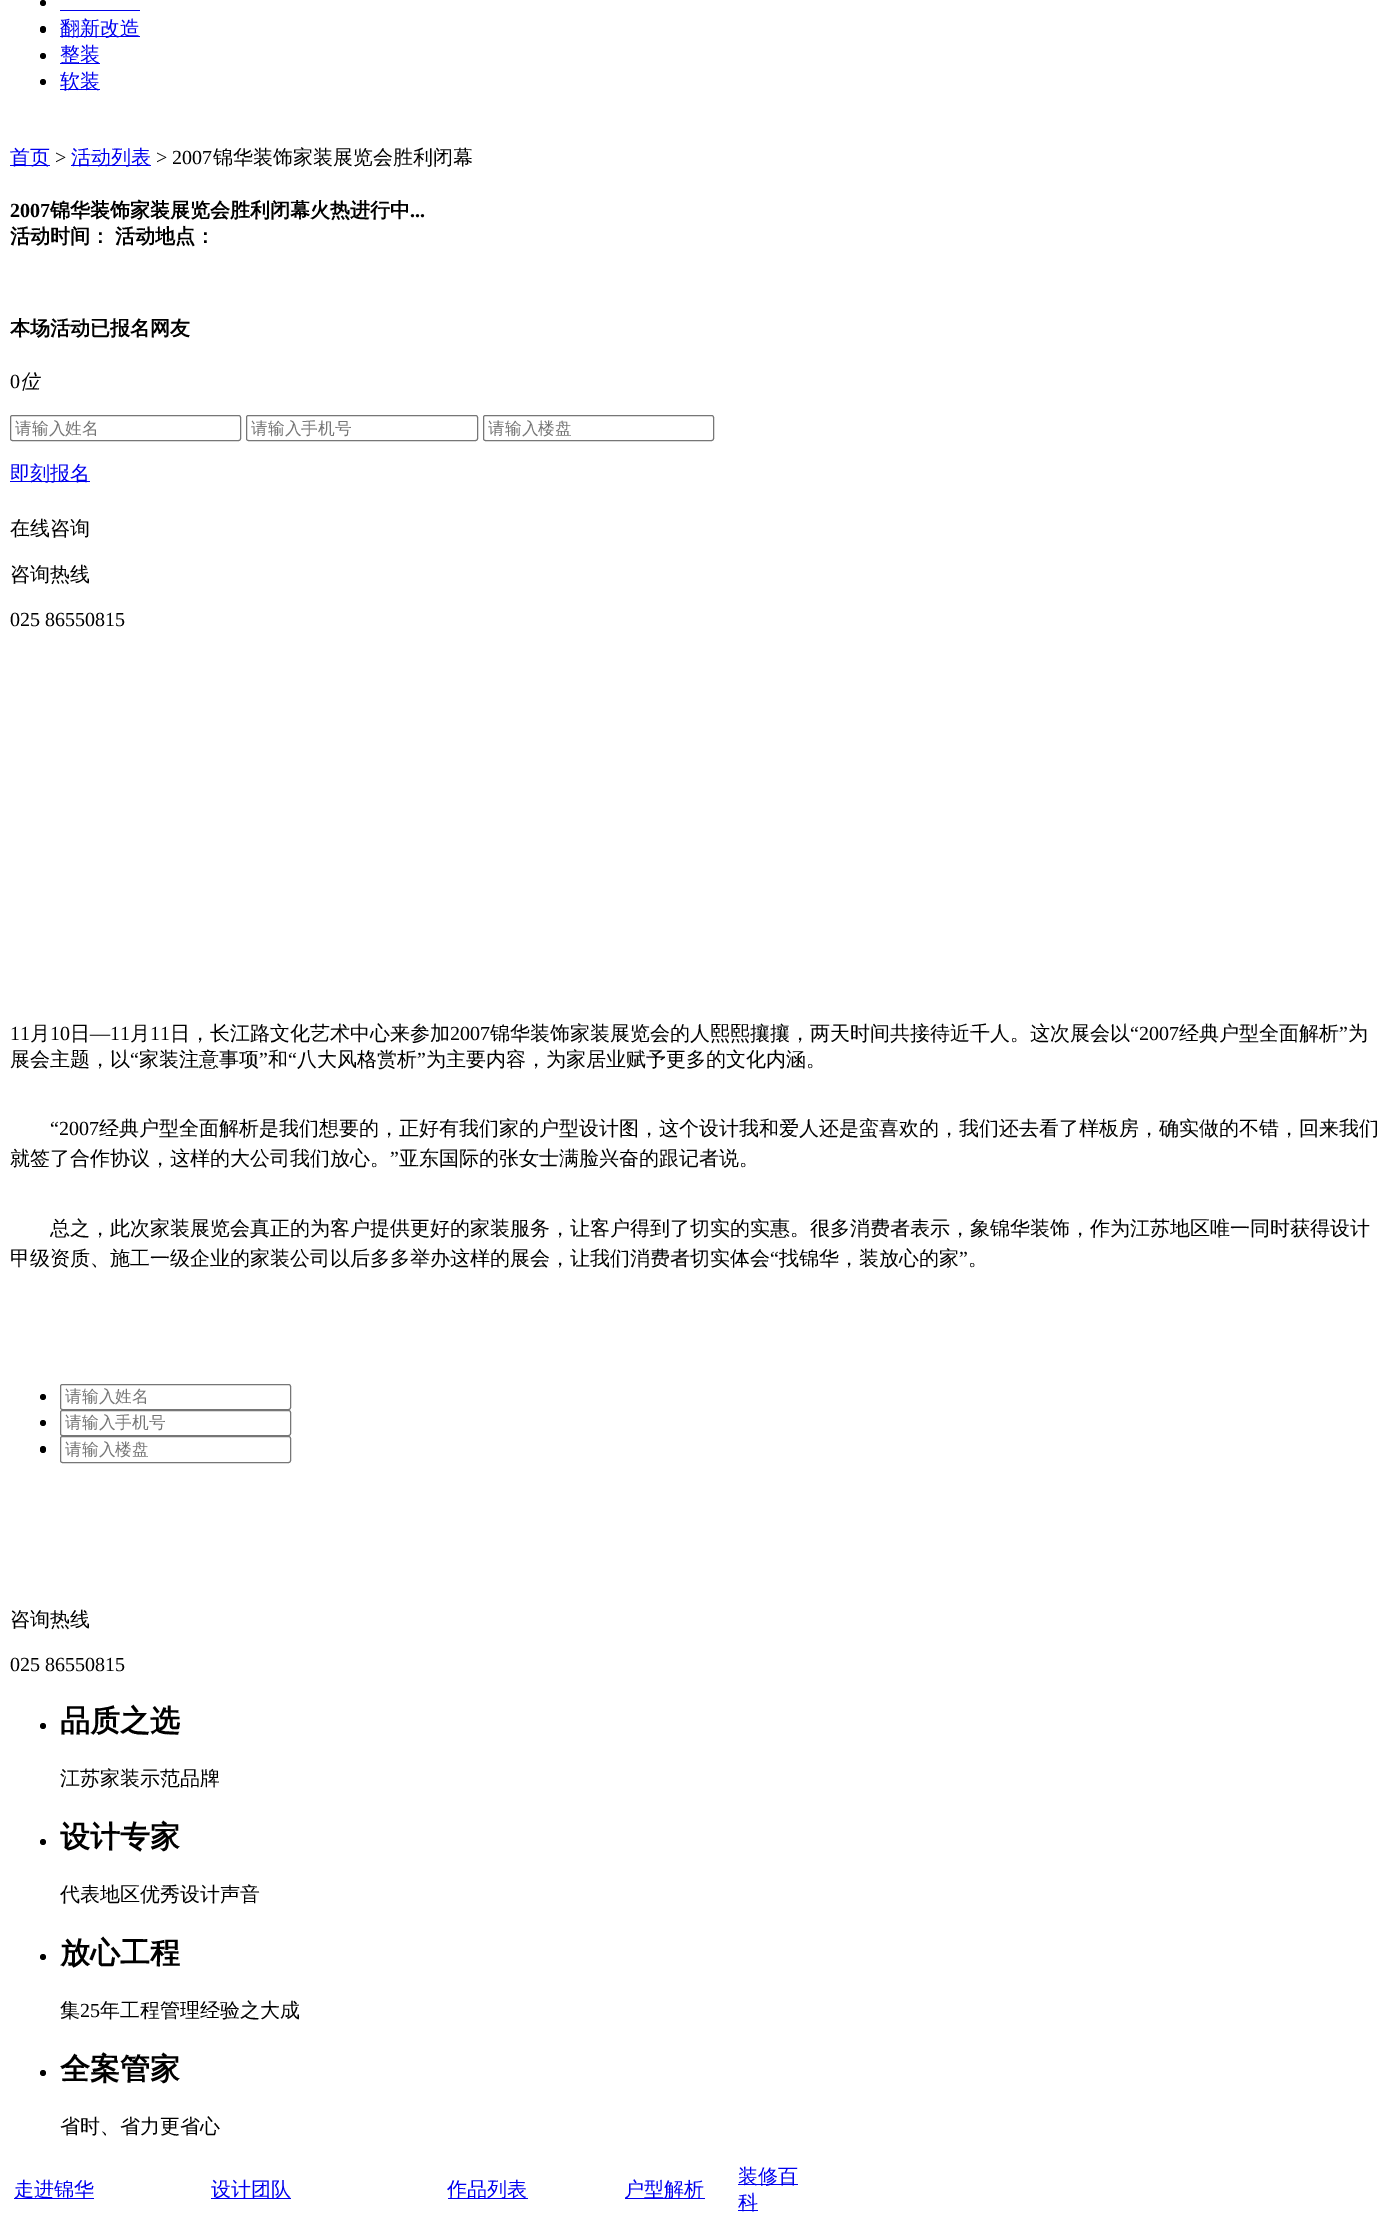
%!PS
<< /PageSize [1390 2217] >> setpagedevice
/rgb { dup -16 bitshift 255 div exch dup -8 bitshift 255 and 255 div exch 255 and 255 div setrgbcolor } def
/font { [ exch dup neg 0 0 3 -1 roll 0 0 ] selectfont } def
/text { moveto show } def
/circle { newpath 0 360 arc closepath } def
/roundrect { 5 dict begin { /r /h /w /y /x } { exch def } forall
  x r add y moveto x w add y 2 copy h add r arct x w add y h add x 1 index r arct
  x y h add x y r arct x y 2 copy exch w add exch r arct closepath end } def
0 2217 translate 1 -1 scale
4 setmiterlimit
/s1 { /WenQuanYiZenHei-Medium 20 font 16#0000EE rgb } def
/s2 { /LiberationSerif-Regular 20 font 16#000000 rgb } def
/s3 { /WenQuanYiZenHei-Medium 20 font 16#000000 rgb } def
/s4 { /LiberationSerif-Bold 20 font 16#000000 rgb } def
/s5 { /WenQuanYiZenHei-Bold 20 font 16#000000 rgb } def
/s6 { /WenQuanYiZenHei-MediumItalic 20 font 16#000000 rgb } def
/s7 { /WenQuanYiZenHei-Medium 16.75 font 16#757575 rgb } def
/s8 { /WenQuanYiZenHei-Bold 30 font 16#000000 rgb } def
16#FFFFFF rgb
0 0 1390 2217 rectfill
16#000000 rgb
43 3 3 circle fill
16#0000EE rgb
60 10 80 1 rectfill
16#000000 rgb
40 26 6 7 3 roundrect fill
16#0000EE rgb
60 36 80 1 rectfill
s1
(翻新改造) 60 35 text
16#000000 rgb
43 56 3 circle fill
16#0000EE rgb
60 63 40 1 rectfill
(整装) 60 61 text
16#000000 rgb
43 82 3 circle fill
16#0000EE rgb
60 89 40 1 rectfill
(软装) 60 88 text
10 165 40 1 rectfill
(首页) 10 164 text
s2
(>) 55 164 text
16#0000EE rgb
71 165 80 1 rectfill
s1
(活动列表) 71 164 text
s2
(> 2007) 156 164 text
s3
(锦华装饰家装展览会胜利闭幕) 213 164 text
s4
(2007) 10 217 text
s5
(锦华装饰家装展览会胜利闭幕火热进行中) 50 217 text
s4
(...) 410 217 text
s5
(活动时间：) 10 243 text
(活动地点：) 115 243 text
(本场活动已报名网友) 10 335 text
s2
(0) 10 388 text
s6
(位) 20 388 text
16#767676 rgb
10.5 415.5 230 25 2 roundrect stroke
s7
(请输入姓名) 15 434 text
16#767676 rgb
246.5 415.5 231 25 2 roundrect stroke
s7
(请输入手机号) 251 434 text
16#767676 rgb
483.5 415.5 230 25 2 roundrect stroke
s7
(请输入楼盘) 488 434 text
16#0000EE rgb
10 481 80 1 rectfill
s1
(即刻报名) 10 480 text
s3
(在线咨询) 10 535 text
(咨询热线) 10 581 text
s2
(025 86550815) 10 626 text
(11) 10 1040 text
s3
(月) 30 1040 text
s2
(10) 50 1040 text
s3
(日) 70 1040 text
s2
(—11) 90 1040 text
s3
(月) 130 1040 text
s2
(11) 150 1040 text
s3
(日，长江路文化艺术中心来参加) 170 1040 text
s2
(2007) 450 1040 text
s3
(锦华装饰家装展览会的人熙熙攘攘，两天时间共接待近千人。这次展会以) 490 1040 text
s2
(“2007) 1130 1040 text
s3
(经典户型全面解析) 1179 1040 text
s2
(”) 1339 1040 text
s3
(为) 1348 1040 text
(展会主题，以) 10 1066 text
s2
(“) 130 1066 text
s3
(家装注意事项) 139 1066 text
s2
(”) 259 1066 text
s3
(和) 268 1066 text
s2
(“) 288 1066 text
s3
(八大风格赏析) 297 1066 text
s2
(”) 417 1066 text
s3
(为主要内容，为家居业赋予更多的文化内涵。) 426 1066 text
s2
(“2007) 50 1135 text
s3
(经典户型全面解析是我们想要的，正好有我们家的户型设计图，这个设计我和爱人还是蛮喜欢的，我们还去看了样板房，确实做的不错，回来我们) 99 1135 text
(就签了合作协议，这样的大公司我们放心。) 10 1165 text
s2
(”) 390 1165 text
s3
(亚东国际的张女士满脸兴奋的跟记者说。) 399 1165 text
(总之，此次家装展览会真正的为客户提供更好的家装服务，让客户得到了切实的实惠。很多消费者表示，象锦华装饰，作为江苏地区唯一同时获得设计) 50 1235 text
(甲级资质、施工一级企业的家装公司以后多多举办这样的展会，让我们消费者切实体会) 10 1265 text
s2
(“) 770 1265 text
s3
(找锦华，装放心的家) 779 1265 text
s2
(”) 959 1265 text
s3
(。) 968 1265 text
43 1397 3 circle fill
16#767676 rgb
60.5 1384.5 230 25 2 roundrect stroke
s7
(请输入姓名) 65 1402 text
16#000000 rgb
43 1423 3 circle fill
16#767676 rgb
60.5 1410.5 230 25 2 roundrect stroke
s7
(请输入手机号) 65 1428 text
16#000000 rgb
40 1446 6 7 3 roundrect fill
16#767676 rgb
60.5 1436.5 230 26 2 roundrect stroke
s7
(请输入楼盘) 65 1455 text
s3
(咨询热线) 10 1626 text
s2
(025 86550815) 10 1671 text
43 1726 3 circle fill
s8
(品质之选) 60 1731 text
s3
(江苏家装示范品牌) 60 1785 text
43 1842 3 circle fill
s8
(设计专家) 60 1847 text
s3
(代表地区优秀设计声音) 60 1901 text
43 1957 3 circle fill
s8
(放心工程) 60 1963 text
s3
(集) 60 2017 text
s2
(25) 80 2017 text
s3
(年工程管理经验之大成) 100 2017 text
43 2073 3 circle fill
s8
(全案管家) 60 2079 text
s3
(省时、省力更省心) 60 2133 text
16#0000EE rgb
14 2198 80 1 rectfill
(走进锦华) 14 2196 text
211 2198 80 1 rectfill
(设计团队) 211 2196 text
448 2198 80 1 rectfill
(作品列表) 447 2196 text
625 2198 80 1 rectfill
(户型解析) 624 2196 text
738 2184 60 1 rectfill
(装修百) 738 2183 text
738 2210 20 1 rectfill
(科) 738 2209 text
showpage
